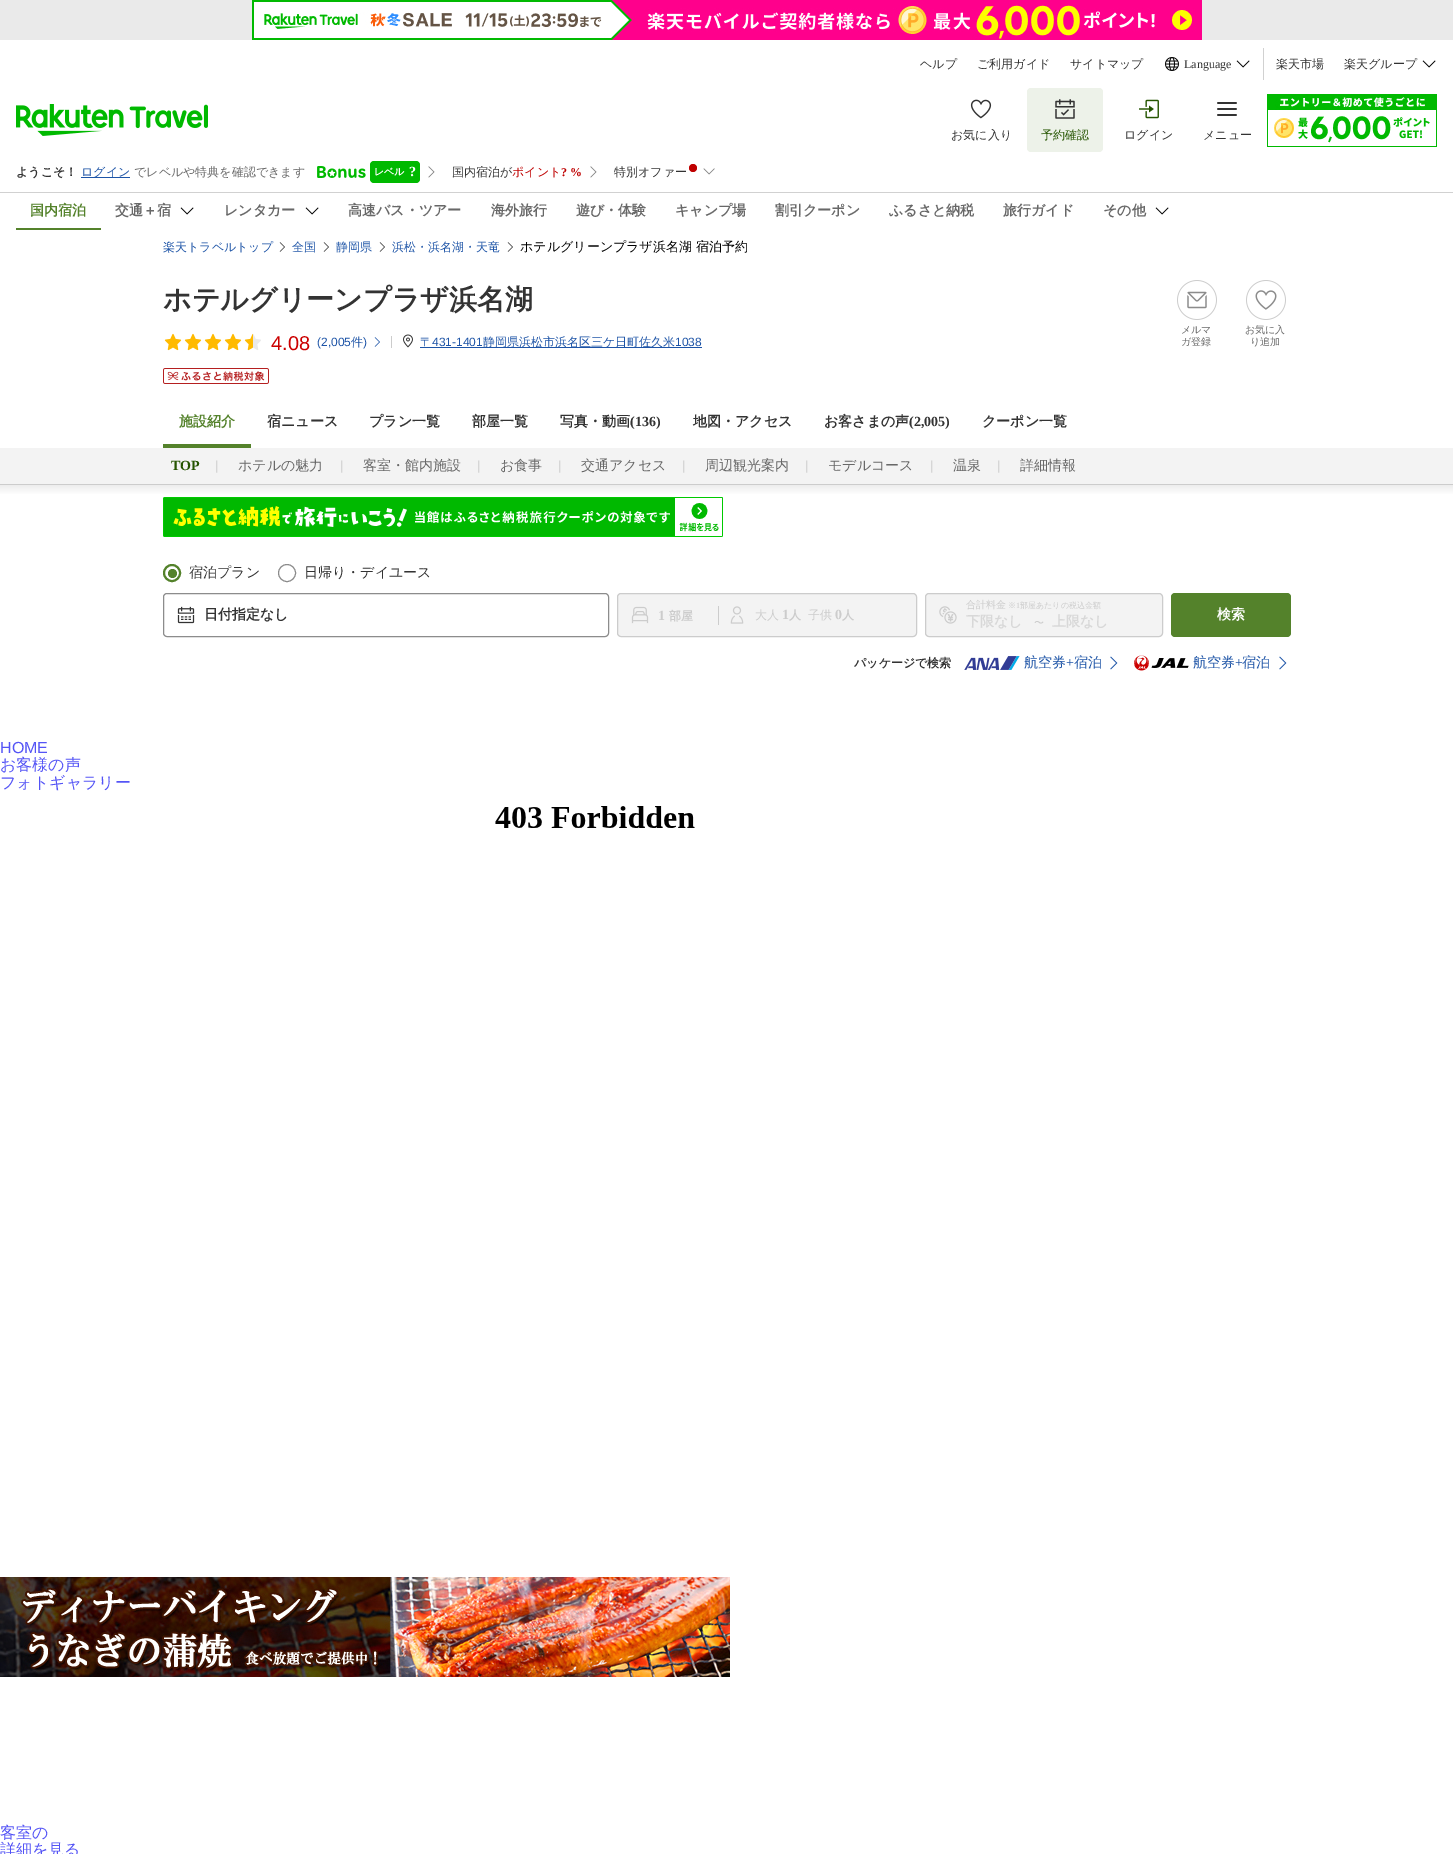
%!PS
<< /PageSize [1453 1854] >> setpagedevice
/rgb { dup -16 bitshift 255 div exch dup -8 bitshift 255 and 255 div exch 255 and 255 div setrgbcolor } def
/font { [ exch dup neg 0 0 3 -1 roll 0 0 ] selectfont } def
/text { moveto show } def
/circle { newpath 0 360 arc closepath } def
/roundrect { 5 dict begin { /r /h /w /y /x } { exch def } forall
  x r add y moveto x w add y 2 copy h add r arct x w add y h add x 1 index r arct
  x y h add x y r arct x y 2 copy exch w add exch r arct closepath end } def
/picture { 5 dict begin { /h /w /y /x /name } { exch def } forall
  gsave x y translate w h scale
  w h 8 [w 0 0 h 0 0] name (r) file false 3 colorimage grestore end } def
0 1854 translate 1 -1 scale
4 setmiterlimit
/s1 { /WenQuanYiZenHei-Medium 12 font 16#333333 rgb } def
/s2 { /LiberationSerif-Regular 12 font 16#333333 rgb } def
/s3 { /WenQuanYiZenHei-Medium 12 font 16#255500 rgb } def
/s4 { /WenQuanYiZenHei-Bold 12 font 16#333333 rgb } def
/s5 { /WenQuanYiZenHei-Medium 12 font 16#1D54A7 rgb } def
/s6 { /WenQuanYiZenHei-Medium 12 font 16#686868 rgb } def
/s7 { /WenQuanYiZenHei-Bold 10 font 16#FFFFFF rgb } def
/s8 { /LiberationSerif-Bold 14 font 16#FFFFFF rgb } def
/s9 { /WenQuanYiZenHei-Medium 12 font 16#BF0000 rgb } def
/s10 { /LiberationSerif-Bold 12 font 16#BF0000 rgb } def
/s11 { /WenQuanYiZenHei-Bold 14 font 16#54822B rgb } def
/s12 { /WenQuanYiZenHei-Bold 14 font 16#686868 rgb } def
/s13 { /WenQuanYiZenHei-Medium 13 font 16#000000 rgb } def
/s14 { /WenQuanYiZenHei-Bold 28 font 16#333333 rgb } def
/s15 { /LiberationSans-Regular 20 font 16#CC0000 rgb } def
/s16 { /LiberationSans-Regular 12 font 16#1D54A7 rgb } def
/s17 { /WenQuanYiZenHei-Medium 10 font 16#686868 rgb } def
/s18 { /WenQuanYiZenHei-Bold 14 font 16#333333 rgb } def
/s19 { /LiberationSerif-Bold 14 font 16#333333 rgb } def
/s20 { /LiberationSerif-Bold 14 font 16#255500 rgb } def
/s21 { /LiberationSans-Regular 13 font 16#CCCCCC rgb } def
/s22 { /WenQuanYiZenHei-Medium 14 font 16#686868 rgb } def
/s23 { /WenQuanYiZenHei-Medium 14 font 16#333333 rgb } def
/s24 { /LiberationSerif-Bold 14 font 16#CCCCCC rgb } def
/s25 { /WenQuanYiZenHei-Bold 12 font 16#CCCCCC rgb } def
/s26 { /WenQuanYiZenHei-Medium 12 font 16#CCCCCC rgb } def
/s27 { /WenQuanYiZenHei-Medium 10 font 16#CCCCCC rgb } def
/s28 { /WenQuanYiZenHei-Medium 8 font 16#CCCCCC rgb } def
/s29 { /LiberationSerif-Regular 8 font 16#CCCCCC rgb } def
/s30 { /WenQuanYiZenHei-Bold 14 font 16#D8D8D8 rgb } def
/s31 { /WenQuanYiZenHei-Bold 14 font 16#FFFFFF rgb } def
/s32 { /WenQuanYiZenHei-Medium 14 font 16#1D54A7 rgb } def
/s33 { /LiberationSerif-Regular 14 font 16#1D54A7 rgb } def
/s34 { /LiberationSans-Regular 16 font 16#5454F6 rgb } def
/s35 { /WenQuanYiZenHei-Medium 16 font 16#5454F6 rgb } def
16#FFFFFF rgb
0 0 1453 1854 rectfill
16#EAEAEA rgb
0 0 1453 40 rectfill
(pic1.raw) 252 0 950 40 picture
s1
(ヘルプ) 920 68 text
(ご利用ガイド) 977 68 text
(サイトマップ) 1070 68 text
(pic2.raw) 1165 57 14 14 picture
s2
(Language) 1184 68 text
(pic3.raw) 1236 60 14 8 picture
16#D1D1D1 rgb
1263 48 1 32 rectfill
s1
(楽天市場) 1276 68 text
(楽天グループ) 1344 68 text
(pic3.raw) 1422 60 14 8 picture
(pic4.raw) 16 104 192 32 picture
(pic5.raw) 970 99 22 20 picture
(お気に入り) 951 139 text
16#EDF2E9 rgb
1027 88 76 64 4 roundrect fill
(pic6.raw) 1055 99 20 20 picture
s3
(予約確認) 1041 139 text
(pic7.raw) 1139 99 20 20 picture
s1
(ログイン) 1124 139 text
(pic8.raw) 1217 102 20 14 picture
(メニュー) 1203 139 text
(pic9.raw) 1267 94 170 53 picture
s4
(ようこそ！) 16 176 text
16#1D54A7 rgb
81 177 49 1 rectfill
s5
(ログイン) 81 176 text
s6
(でレベルや特典を確認できます) 134 176 text
(pic10.raw) 317 166 49 12 picture
16#00B900 rgb
370 161 50 22 4 roundrect fill
s7
(レベル) 374 175 text
s8
(?) 409 176 text
(pic11.raw) 428 166 7 12 picture
s1
(国内宿泊が) 452 176 text
s9
(ポイント) 512 176 text
s10
(? %) 561 176 text
(pic11.raw) 590 166 7 12 picture
s1
(特別オファー) 614 176 text
16#BF0000 rgb
693 168 4 circle fill
(pic12.raw) 703 168 12 7 picture
16#D1D1D1 rgb
0 192 1453 1 rectfill
16#54822B rgb
16 228 85 2 rectfill
s11
(国内宿泊) 30 215 text
s12
(交通＋宿) 115 215 text
(pic3.raw) 180 207 14 8 picture
(レンタカー) 224 215 text
(pic3.raw) 305 207 14 8 picture
(高速バス・ツアー) 348 215 text
(海外旅行) 491 215 text
(遊び・体験) 576 215 text
(キャンプ場) 675 215 text
(割引クーポン) 775 215 text
(ふるさと納税) 889 215 text
(旅行ガイド) 1003 215 text
(その他) 1103 215 text
(pic3.raw) 1155 207 14 8 picture
s5
(楽天トラベルトップ) 163 251 text
(pic13.raw) 279 242 6 10 picture
(全国) 292 251 text
(pic13.raw) 323 242 6 10 picture
(静岡県) 336 251 text
(pic13.raw) 379 242 6 10 picture
(浜松・浜名湖・天竜) 392 251 text
(pic13.raw) 507 242 6 10 picture
s13
(ホテルグリーンプラザ浜名湖 宿泊予約) 520 251 text
s14
(ホテルグリーンプラザ浜名湖) 163 309 text
(pic14.raw) 164 333 18 18 picture
(pic14.raw) 184 333 18 18 picture
(pic14.raw) 204 333 18 18 picture
(pic14.raw) 224 333 18 18 picture
(pic15.raw) 244 333 17 18 picture
s15
(4.08) 271 350 text
16#CCCCCC rgb
391 336 1 12 rectfill
s16
(\(2,005) 317 346 text
s5
(件) 351 346 text
s16
(\)) 363 346 text
(pic16.raw) 374 337 6 10 picture
(pic17.raw) 403 334 10 14 picture
s5
(〒) 420 346 text
420 347 282 1 rectfill
s16
(431-1401) 432 346 text
s5
(静岡県浜松市浜名区三ケ日町佐久米) 483 346 text
s16
(1038) 675 346 text
(pic18.raw) 163 368 106 16 picture
(pic19.raw) 1177 280 40 40 picture
s17
(メルマ) 1181 333 text
(ガ登録) 1181 345 text
(pic20.raw) 1246 280 40 40 picture
(お気に入) 1245 333 text
(り追加) 1250 345 text
16#54822B rgb
163 444 88 4 rectfill
s11
(施設紹介) 179 426 text
s18
(宿ニュース) 267 426 text
(プラン一覧) 369 426 text
(部屋一覧) 472 426 text
(写真・動画) 560 426 text
s19
(\(136\)) 630 426 text
s18
(地図・アクセス) 693 426 text
(お客さまの声) 824 426 text
s19
(\(2,005\)) 909 426 text
s18
(クーポン一覧) 982 426 text
gsave 0 485 moveto 1453 485 lineto 1453 494 lineto 0 494 lineto closepath clip newpath
<< /ShadingType 2 /ColorSpace /DeviceRGB /Coords [727 495 727 485] /Extend [true true] /Function << /FunctionType 2 /Domain [0 1] /C0 [1 1 1] /C1 [0.929 0.929 0.929] /N 1 >> >> shfill grestore
16#F3F3F3 rgb
0 448 1453 36 rectfill
16#CCCCCC rgb
0 484 1453 1 rectfill
s20
(TOP) 171 470 text
s21
(|) 215 470 text
s22
(ホテルの魅力) 238 470 text
s21
(|) 340 470 text
s22
(客室・館内施設) 363 470 text
s21
(|) 477 470 text
s22
(お食事) 500 470 text
s21
(|) 558 470 text
s22
(交通アクセス) 581 470 text
s21
(|) 682 470 text
s22
(周辺観光案内) 705 470 text
s21
(|) 805 470 text
s22
(モデルコース) 828 470 text
s21
(|) 930 470 text
s22
(温泉) 953 470 text
s21
(|) 997 470 text
s22
(詳細情報) 1020 470 text
(pic21.raw) 163 497 560 40 picture
16#54822B rgb
2 setlinewidth
172 573 8 circle stroke
s23
(宿泊プラン) 189 577 text
16#54822B rgb
172.5 573.5 4.5 circle fill
16#8C8C8C rgb
1 setlinewidth
287 573 8.5 circle stroke
s23
(日帰り・デイユース) 304 577 text
16#8C8C8C rgb
163.5 593.5 445 43 3.5 roundrect stroke
(pic22.raw) 177 606 18 18 picture
s18
(日付指定なし) 204 619 text
16#F3F3F3 rgb
617.5 593.5 299 43 3.5 roundrect gsave fill grestore
16#CCCCCC rgb
stroke
718 606 1 19 rectfill
(pic23.raw) 631 606 18 18 picture
s24
(1) 658 620 text
s25
(部屋) 669 620 text
(pic24.raw) 730 606 14 18 picture
s26
(大人) 755 619 text
s24
(1) 782 619 text
s25
(人) 789 619 text
s26
(子供) 808 619 text
s24
(0) 835 619 text
s25
(人) 842 619 text
16#F3F3F3 rgb
925.5 593.5 237 43 3.5 roundrect gsave fill grestore
16#CCCCCC rgb
stroke
(pic25.raw) 939 606 18 18 picture
s27
(合計料金) 966 608 text
s28
(※) 1008 608 text
s29
(1) 1016 608 text
s28
(部屋あたりの税込金額) 1020 608 text
s30
(下限なし) 966 626 text
s27
(〜) 1034 626 text
s30
(上限なし) 1052 626 text
16#54822B rgb
1171 593 120 44 4 roundrect fill
s31
(検索) 1217 619 text
s4
(パッケージで検索) 854 667 text
(pic26.raw) 964 656 56 14 picture
s32
(航空券) 1024 667 text
s33
(+) 1066 667 text
s32
(宿泊) 1074 667 text
(pic27.raw) 1110 656 8 14 picture
(pic28.raw) 1134 655 55 16 picture
(航空券) 1193 667 text
s33
(+) 1235 667 text
s32
(宿泊) 1242 667 text
(pic27.raw) 1279 656 8 14 picture
s34
(HOME) 0 753 text
s35
(お客様の声) 0 770 text
(フォトギャラリー) 0 788 text
(pic29.raw) 495 806 200 22 picture
(pic30.raw) 0 1577 730 100 picture
(客室の) 0 1838 text
(詳細を見る) 0 1855 text
showpage
